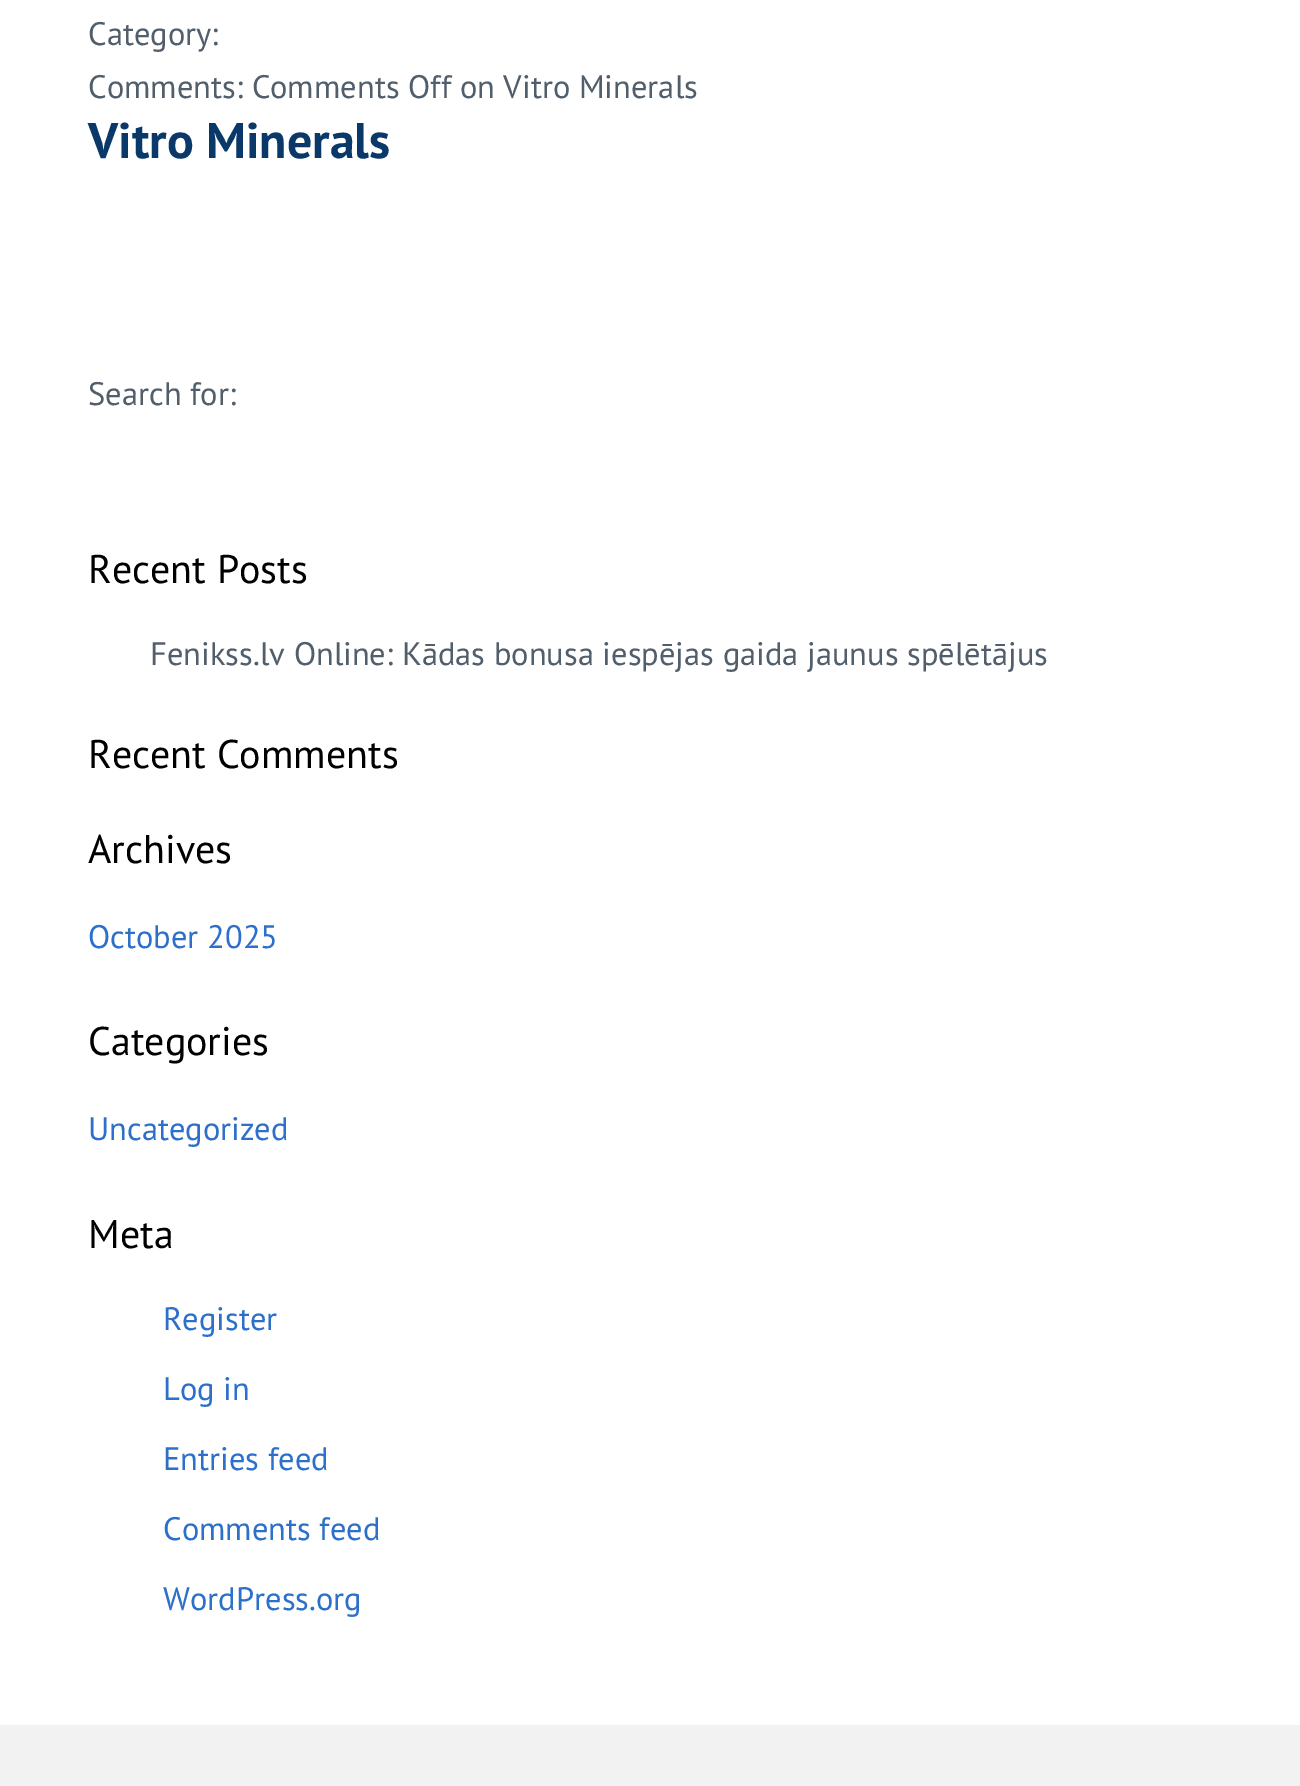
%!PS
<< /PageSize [1300 1786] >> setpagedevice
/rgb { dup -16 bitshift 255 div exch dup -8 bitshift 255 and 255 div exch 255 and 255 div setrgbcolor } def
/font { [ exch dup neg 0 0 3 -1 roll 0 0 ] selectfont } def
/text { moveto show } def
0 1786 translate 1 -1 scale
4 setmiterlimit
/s1 { /PTSans-Regular 32.5 font 16#515E6C rgb } def
/s2 { /PTSans-Bold 50 font 16#093869 rgb } def
/s3 { /PTSans-Regular 40 font 16#000000 rgb } def
/s4 { /PTSans-Regular 32.5 font 16#2D70CA rgb } def
16#F2F2F2 rgb
0 0 1300 1786 rectfill
16#FFFFFF rgb
0 0 1300 1725 rectfill
s1
(Category:) 88 45 text
(Comments: Comments Off on Vitro Minerals) 88 98 text
s2
(Vitro Minerals) 88 158 text
s1
(Search for:) 88 405 text
s3
(Recent Posts) 88 583 text
s1
(Fenikss.lv Online: Kādas bonusa iespējas gaida jaunus spēlētājus) 150 665 text
s3
(Recent Comments) 88 768 text
(Archives) 88 863 text
s4
(October 2025) 88 948 text
s3
(Categories) 88 1055 text
s4
(Uncategorized) 88 1140 text
s3
(Meta) 88 1248 text
s4
(Register) 163 1330 text
(Log in) 163 1400 text
(Entries feed) 163 1470 text
(Comments feed) 163 1540 text
(WordPress.org) 163 1610 text
showpage
